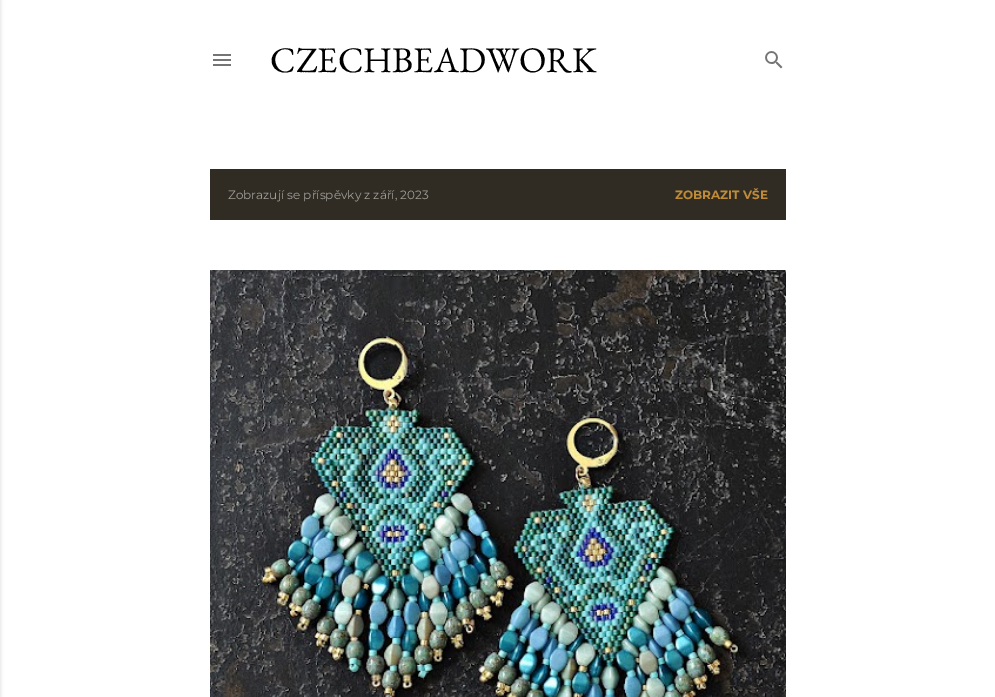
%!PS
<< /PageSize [995 697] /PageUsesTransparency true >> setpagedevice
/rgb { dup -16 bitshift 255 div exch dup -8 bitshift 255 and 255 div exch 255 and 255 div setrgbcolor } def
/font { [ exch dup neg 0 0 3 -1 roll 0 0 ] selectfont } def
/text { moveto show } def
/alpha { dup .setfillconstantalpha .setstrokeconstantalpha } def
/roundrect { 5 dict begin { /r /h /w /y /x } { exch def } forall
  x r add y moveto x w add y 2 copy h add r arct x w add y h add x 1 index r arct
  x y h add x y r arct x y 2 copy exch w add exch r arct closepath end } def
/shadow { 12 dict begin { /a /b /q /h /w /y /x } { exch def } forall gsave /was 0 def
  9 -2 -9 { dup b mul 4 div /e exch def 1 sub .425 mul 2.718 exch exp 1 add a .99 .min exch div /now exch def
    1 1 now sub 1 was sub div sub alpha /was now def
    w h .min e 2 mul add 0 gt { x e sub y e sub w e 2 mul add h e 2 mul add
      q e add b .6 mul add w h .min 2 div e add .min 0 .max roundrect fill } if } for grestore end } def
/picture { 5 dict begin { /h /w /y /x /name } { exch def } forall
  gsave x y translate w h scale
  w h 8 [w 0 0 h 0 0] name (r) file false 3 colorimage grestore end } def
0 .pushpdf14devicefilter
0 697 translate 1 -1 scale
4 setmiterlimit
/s1 { /EBGaramond-Regular 36 font 16#000000 rgb } def
/s2 { /Montserrat-Regular 12 font 16#A09E9A rgb } def
/s3 { /Montserrat-Bold 12 font 16#BF8B38 rgb } def
16#FFFFFF rgb
0 0 995 697 rectfill
16#000000 rgb
-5 0 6 697 0 1.5 0.1 shadow
(pic1.raw) 213 54 18 12 picture
s1
(CZECHBEADWORK) 270 72 text
(pic2.raw) 765 51 18 18 picture
16#302C24 rgb
210 169 576 51 rectfill
s2
(Zobrazují se příspěvky z září, 2023) 228 199 text
s3
(ZOBRAZIT VŠE) 675 199 text
(pic3.raw) 210 270 576 427 picture
.poppdf14devicefilter showpage
